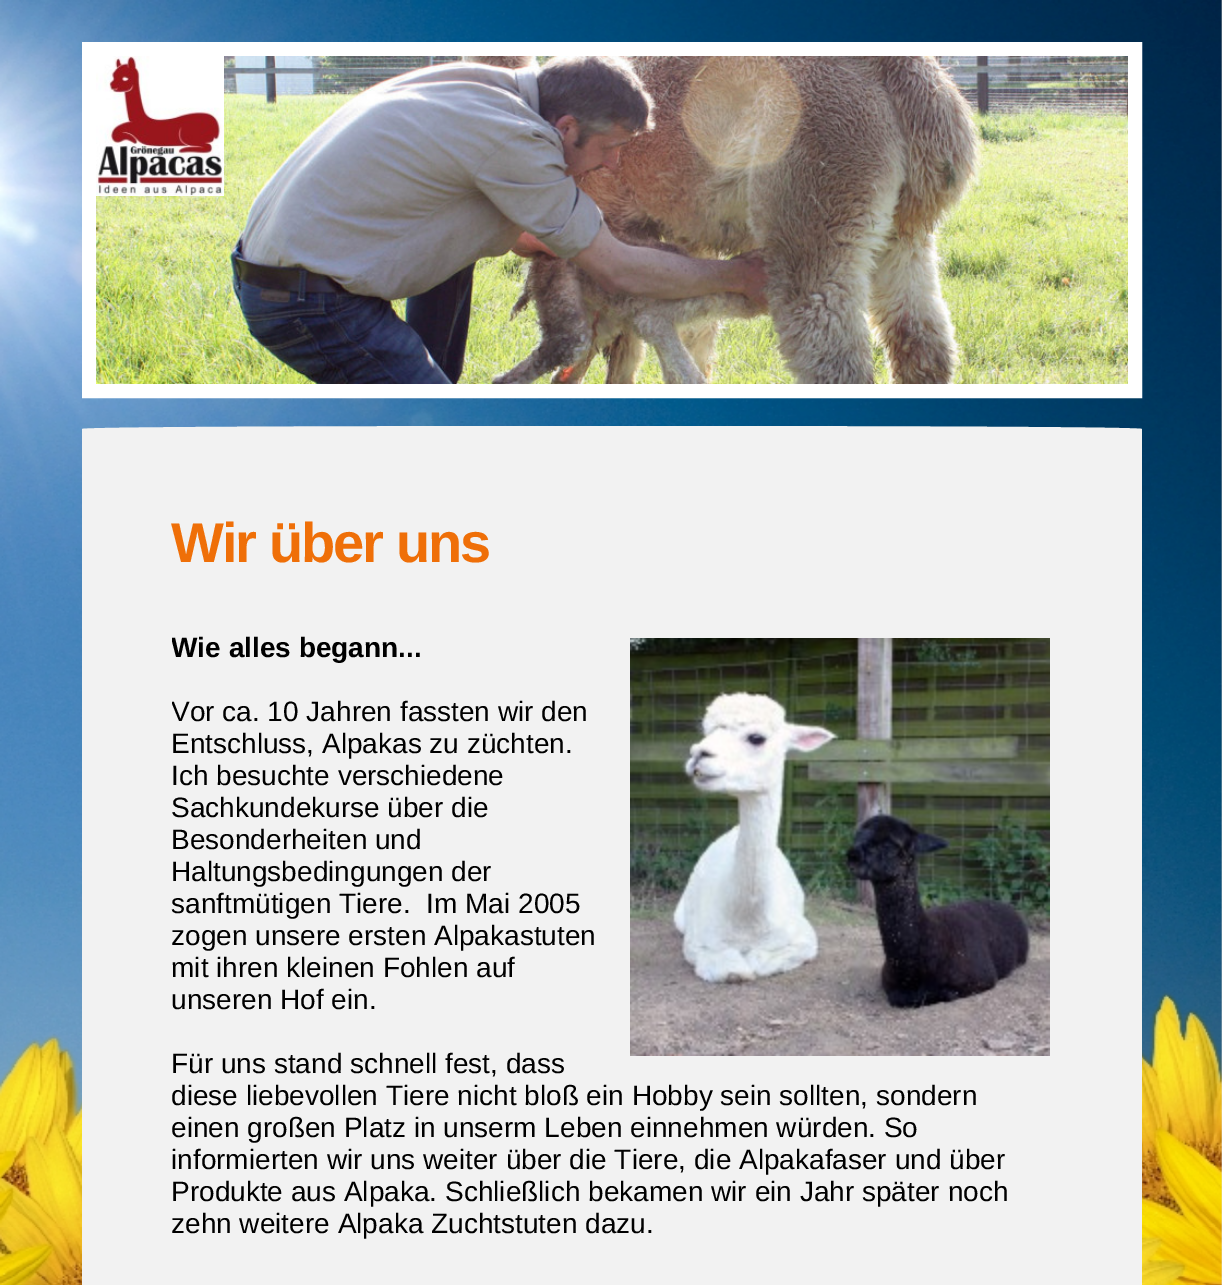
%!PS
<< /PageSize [1222 1285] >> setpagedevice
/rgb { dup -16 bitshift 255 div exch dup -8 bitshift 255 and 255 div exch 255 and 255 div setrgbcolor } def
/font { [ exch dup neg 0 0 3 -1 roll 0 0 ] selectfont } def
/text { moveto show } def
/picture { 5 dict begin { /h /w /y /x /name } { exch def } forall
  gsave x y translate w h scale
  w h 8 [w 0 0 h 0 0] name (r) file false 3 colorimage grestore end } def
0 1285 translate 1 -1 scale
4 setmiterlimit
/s1 { /LiberationSans-Bold 28 font 16#000000 rgb } def
/s2 { /LiberationSans-Regular 28 font 16#000000 rgb } def
16#E3DCD3 rgb
0 0 1222 1285 rectfill
(pic1.raw) 0 0 1222 1285 picture
16#FFFFFF rgb
14 setlinewidth
89 49 1046 342 rectstroke
(pic2.raw) 96 56 1032 328 picture
(pic3.raw) 96 56 128 140 picture
16#F2F2F2 rgb
612 426 moveto 905 426 1142 427 1142 429 curveto 1142 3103 lineto 1142 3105 905 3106 612 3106 curveto 319 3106 82 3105 82 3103 curveto 82 429 lineto 82 427 319 426 612 426 curveto closepath fill
/LiberationSans-Bold 56 font
16#EF6F08 rgb
171 562 moveto -2 0 (Wir über uns) ashow
gsave
172 630 880 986 rectclip
s1
(Wie alles begann...) 171 657 text
s2
(Vor ca. 10 Jahren fassten wir den) 171 721 text
grestore
s2
(Entschluss, Alpakas zu züchten.) 171 753 text
(Ich besuchte verschiedene) 171 785 text
(Sachkundekurse über die) 171 817 text
(Besonderheiten und) 171 849 text
(Haltungsbedingungen der) 171 881 text
(sanftmütigen Tiere.  Im Mai 2005) 171 913 text
(zogen unsere ersten Alpakastuten) 171 945 text
(mit ihren kleinen Fohlen auf) 171 977 text
(unseren Hof ein.) 171 1009 text
(Für uns stand schnell fest, dass) 171 1073 text
(diese liebevollen Tiere nicht bloß ein Hobby sein sollten, sondern) 171 1105 text
(einen großen Platz in unserm Leben einnehmen würden. So) 171 1137 text
(informierten wir uns weiter über die Tiere, die Alpakafaser und über) 171 1169 text
(Produkte aus Alpaka. Schließlich bekamen wir ein Jahr später noch) 171 1201 text
(zehn weitere Alpaka Zuchtstuten dazu.) 171 1233 text
(pic4.raw) 630 638 420 418 picture
showpage
